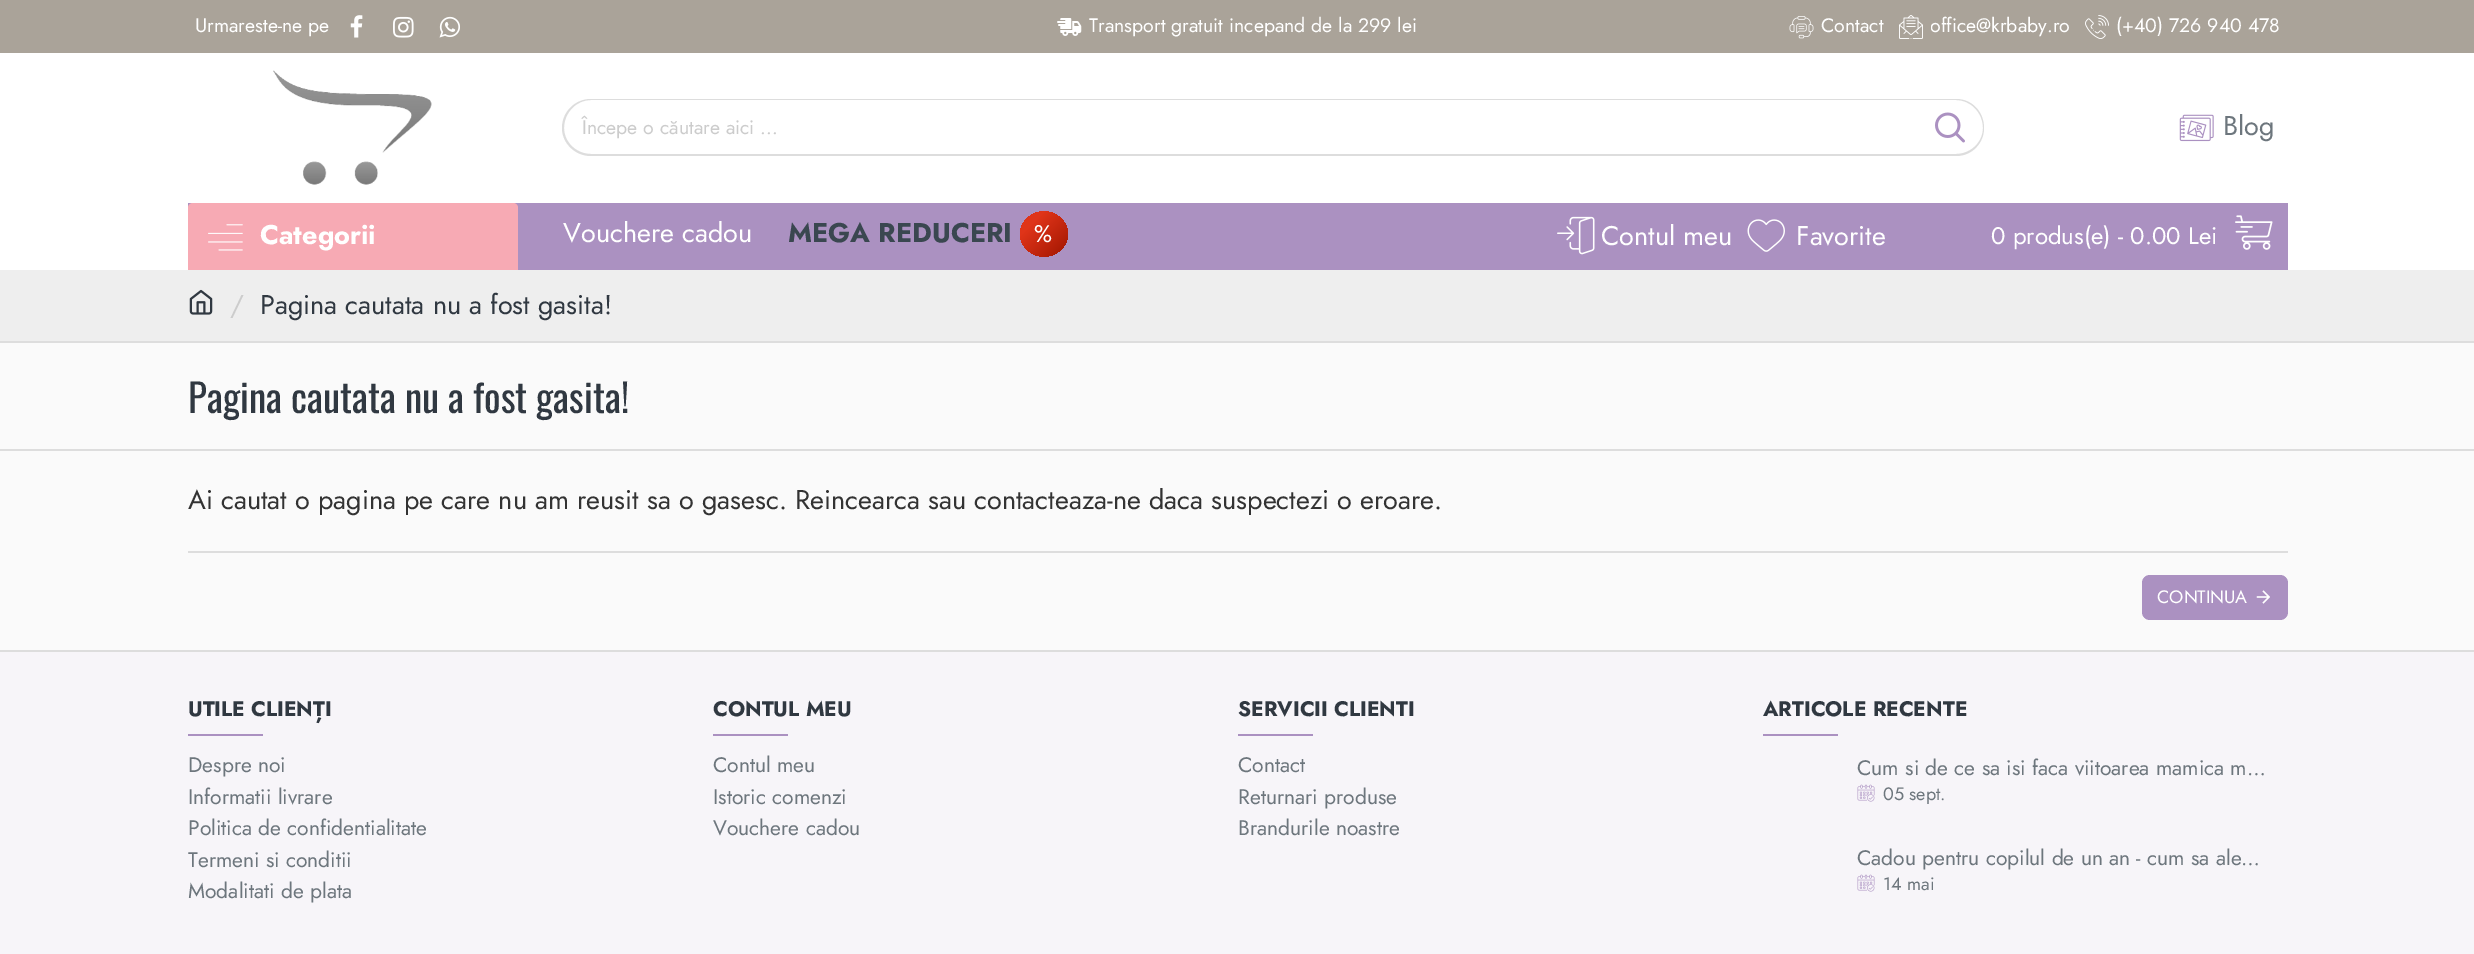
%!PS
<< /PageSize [2474 954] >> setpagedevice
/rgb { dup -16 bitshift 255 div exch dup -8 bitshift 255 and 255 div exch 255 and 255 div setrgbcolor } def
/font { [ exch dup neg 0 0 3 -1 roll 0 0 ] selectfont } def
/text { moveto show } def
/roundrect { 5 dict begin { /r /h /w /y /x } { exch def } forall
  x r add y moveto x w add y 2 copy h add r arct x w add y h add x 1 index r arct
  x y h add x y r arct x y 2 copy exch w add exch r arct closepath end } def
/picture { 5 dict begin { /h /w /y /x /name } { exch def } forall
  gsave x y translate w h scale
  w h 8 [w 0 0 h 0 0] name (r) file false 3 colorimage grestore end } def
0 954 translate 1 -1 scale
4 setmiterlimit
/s1 { /Jost-Regular 19.5 font 16#FFFFFF rgb } def
/s2 { /Jost-Regular 19.5 font 16#CCCCCC rgb } def
/s3 { /Jost-Regular 27 font 16#6D767D rgb } def
/s4 { /Jost-Bold 27 font 16#FFFFFF rgb } def
/s5 { /Jost-Regular 27 font 16#FFFFFF rgb } def
/s6 { /Jost-Bold 27 font 16#3A4750 rgb } def
/s7 { /Jost-Regular 24 font 16#FFFFFF rgb } def
/s8 { /Jost-Regular 27 font 16#CCCCCC rgb } def
/s9 { /Jost-Regular 27 font 16#303841 rgb } def
/s10 { /Oswald-Regular 39 font 16#303841 rgb } def
/s11 { /Jost-Regular 27 font 16#333333 rgb } def
/s12 { /Jost-Regular 18 font 16#FFFFFF rgb } def
/s13 { /Jost-Bold 21 font 16#303841 rgb } def
/s14 { /Jost-Regular 21 font 16#6D767D rgb } def
/s15 { /Jost-Regular 18 font 16#6D767D rgb } def
16#FAFAFA rgb
0 0 2474 954 rectfill
16#FFFFFF rgb
0 53 2474 217 rectfill
16#AAA399 rgb
0 0 2474 53 rectfill
s1
(Urmareste-ne pe) 195 32 text
(pic1.raw) 350 15 13 23 picture
(pic2.raw) 393 16 21 22 picture
(pic3.raw) 439 16 21 22 picture
(pic4.raw) 1057 18 25 18 picture
(Transport gratuit incepand de la 299 lei) 1089 32 text
(pic5.raw) 1789 16 25 23 picture
(Contact) 1821 32 text
(pic6.raw) 1899 15 24 24 picture
gsave
1931 11 139 31 rectclip
(office@krbaby.ro) 1930 32 text
grestore
(pic7.raw) 2085 15 24 24 picture
(\(+40\) 726 940 478) 2116 32 text
(pic8.raw) 273 70 159 115 picture
16#DDDDDD rgb
591 99 moveto 1917 99 lineto 1917 156 lineto 591 156 lineto 575 156 562 143 562 128 curveto 562 112 575 99 591 99 curveto closepath 591 100 moveto 1917 100 lineto 1917 154 lineto 591 154 lineto 576 154 564 142 564 128 curveto 564 113 576 100 591 100 curveto closepath eofill
s2
(Începe o căutare aici ...) 582 134 text
16#DDDDDD rgb
1917 99 moveto 1956 99 lineto 1972 99 1984 112 1984 128 curveto 1984 143 1972 156 1956 156 curveto 1917 156 lineto closepath 1917 100 moveto 1956 100 lineto 1971 100 1983 113 1983 128 curveto 1983 142 1971 154 1956 154 curveto 1917 154 lineto closepath eofill
(pic9.raw) 1935 112 30 31 picture
(pic10.raw) 2179 114 35 28 picture
s3
(Blog) 2223 135 text
16#AB91C1 rgb
188 203 2100 67 rectfill
16#F7AAB4 rgb
193 203 moveto 513 203 lineto 516 203 518 205 518 208 curveto 518 270 lineto 188 270 lineto 188 208 lineto 188 205 190 203 193 203 curveto closepath fill
(pic11.raw) 208 224 35 27 picture
s4
(Categorii) 260 244 text
s5
(Vouchere cadou) 563 242 text
s6
(MEGA REDUCERI) 788 242 text
gsave 1044 211.5 moveto 1057.5 211.5 1068 221.5 1068 234 curveto 1068 246.5 1057.5 256.5 1044 256.5 curveto 1030.5 256.5 1020 246.5 1020 234 curveto 1020 221.5 1030.5 211.5 1044 211.5 curveto closepath clip newpath
<< /ShadingType 2 /ColorSpace /DeviceRGB /Coords [1067 257 1021 211] /Extend [true true] /Function << /FunctionType 3 /Domain [0 1] /Functions [<< /FunctionType 2 /Domain [0 1] /C0 [0.627 0.086 0] /C1 [0.875 0.204 0.098] /N 1 >> << /FunctionType 2 /Domain [0 1] /C0 [0.875 0.204 0.098] /C1 [0.875 0.204 0.098] /N 1 >>] /Bounds [0.74] /Encode [0 1 0 1] >> >> shfill grestore
s7
(%) 1034 242 text
(pic12.raw) 1557 216 38 39 picture
s5
(Contul meu) 1601 245 text
(pic13.raw) 1747 219 38 33 picture
(Favorite) 1796 245 text
s7
(0 produs\(e\) - 0.00 Lei) 1991 244 text
(pic14.raw) 2235 215 38 35 picture
16#EEEEEE rgb
0 270 2474 71 rectfill
16#DDDDDD rgb
0 341 2474 2 rectfill
(pic15.raw) 189 289 24 26 picture
s8
(/) 230 314 text
s9
(Pagina cautata nu a fost gasita!) 260 314 text
16#DDDDDD rgb
0 449 2474 2 rectfill
s10
(Pagina cautata nu a fost gasita!) 188 413 text
s11
(Ai cautat o pagina pe care nu am reusit sa o gasesc. Reincearca sau contacteaza-ne daca suspectezi o eroare.) 188 509 text
16#DDDDDD rgb
188 551 2100 2 rectfill
16#AB91C1 rgb
2142 575 146 45 8 roundrect fill
s12
(CONTINUA) 2157 603 text
(pic16.raw) 2256 590 14 14 picture
16#F7F5F9 rgb
0 652 2474 302 rectfill
16#DDDDDD rgb
0 650 2474 2 rectfill
s13
(UTILE CLIENȚI) 188 716 text
16#AB91C1 rgb
188 734 75 2 rectfill
s14
(Despre noi) 188 772 text
(Informatii livrare) 188 804 text
(Politica de confidentialitate) 188 835 text
(Termeni si conditii) 188 867 text
(Modalitati de plata) 188 898 text
s13
(CONTUL MEU) 713 716 text
16#AB91C1 rgb
713 734 75 2 rectfill
s14
(Contul meu) 713 772 text
(Istoric comenzi) 713 804 text
(Vouchere cadou) 713 835 text
s13
(SERVICII CLIENTI) 1238 716 text
16#AB91C1 rgb
1238 734 75 2 rectfill
s14
(Contact) 1238 772 text
(Returnari produse) 1238 804 text
(Brandurile noastre) 1238 835 text
s13
(ARTICOLE RECENTE) 1763 716 text
16#AB91C1 rgb
1763 734 75 2 rectfill
s14
(Cum si de ce sa isi faca viitoarea mamica m…) 1857 775 text
(pic17.raw) 1857 784 18 18 picture
s15
(05) 1883 800 text
(sept.) 1909 800 text
s14
(Cadou pentru copilul de un an - cum sa ale…) 1857 865 text
(pic17.raw) 1857 874 18 18 picture
s15
(14) 1883 890 text
(mai) 1907 890 text
showpage
